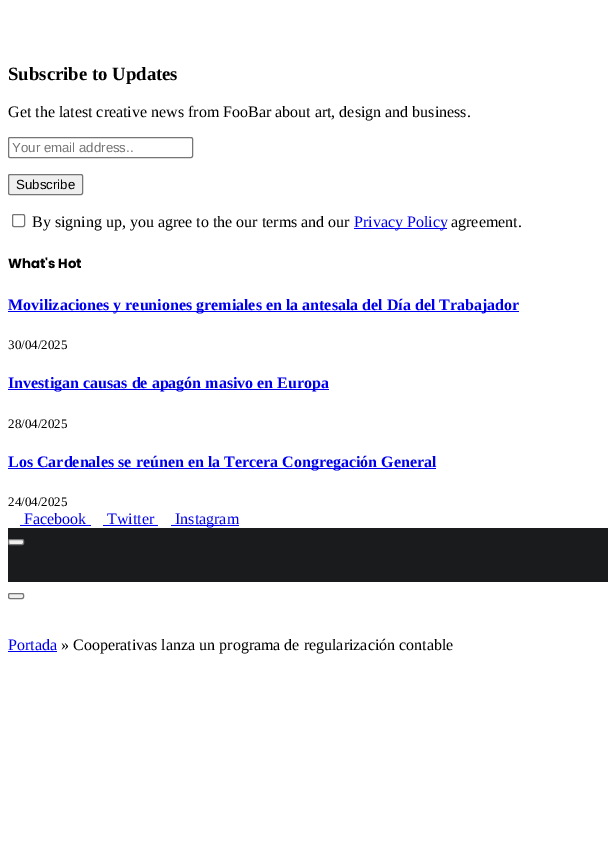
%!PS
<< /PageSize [616 865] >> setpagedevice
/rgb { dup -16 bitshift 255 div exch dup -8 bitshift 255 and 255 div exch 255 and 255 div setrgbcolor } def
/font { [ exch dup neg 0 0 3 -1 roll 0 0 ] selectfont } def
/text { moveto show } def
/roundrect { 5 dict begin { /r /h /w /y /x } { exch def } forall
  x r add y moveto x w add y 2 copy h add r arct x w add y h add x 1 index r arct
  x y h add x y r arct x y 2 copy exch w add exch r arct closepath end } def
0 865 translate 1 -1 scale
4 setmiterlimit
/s1 { /LiberationSerif-Bold 18.75 font 16#000000 rgb } def
/s2 { /LiberationSerif-Regular 16 font 16#000000 rgb } def
/s3 { /LiberationSans-Regular 13.25 font 16#757575 rgb } def
/s4 { /LiberationSans-Regular 13.25 font 16#000000 rgb } def
/s5 { /LiberationSerif-Regular 16 font 16#0000EE rgb } def
/s6 { /Poppins-Bold 13.25 font 16#000000 rgb } def
/s7 { /LiberationSerif-Bold 16 font 16#0000EE rgb } def
/s8 { /LiberationSerif-Regular 13 font 16#000000 rgb } def
16#FFFFFF rgb
0 0 616 865 rectfill
s1
(Subscribe to Updates) 8 80 text
s2
(Get the latest creative news from FooBar about art, design and business.) 8 117 text
16#767676 rgb
8.5 137.5 184 20 1.5 roundrect stroke
s3
(Your email address..) 12 152 text
16#EFEFEF rgb
8.5 174.5 74 20 1.5 roundrect gsave fill grestore
16#767676 rgb
stroke
s4
(Subscribe) 16 189 text
16#767676 rgb
12.5 214.5 12 12 1.5 roundrect stroke
s2
(By signing up, you agree to the our terms and our) 32 227 text
16#0000EE rgb
354 228 93 1 rectfill
(Privacy Policy) 354 227 text
s2
(agreement.) 451 227 text
s6
(What's Hot) 8 268 text
16#0000EE rgb
8 311 511 1 rectfill
s7
(Movilizaciones y reuniones gremiales en la antesala del Día del Trabajador) 8 310 text
s8
(30/04/2025) 8 349 text
16#0000EE rgb
8 389 321 1 rectfill
s7
(Investigan causas de apagón masivo en Europa) 8 388 text
s8
(28/04/2025) 8 428 text
16#0000EE rgb
8 468 428 1 rectfill
s7
(Los Cardenales se reúnen en la Tercera Congregación General) 8 467 text
s8
(24/04/2025) 8 506 text
s5
(Facebook) 24 524 text
20 525 71 1 rectfill
(Twitter) 107 524 text
103 525 55 1 rectfill
171 525 68 1 rectfill
(Instagram) 175 524 text
16#1A1B1D rgb
8 528 600 54 rectfill
16#EFEFEF rgb
8.5 539.5 15 5 1.5 roundrect gsave fill grestore
16#767676 rgb
stroke
16#EFEFEF rgb
8.5 593.5 15 5 1.5 roundrect gsave fill grestore
16#767676 rgb
stroke
s5
(Portada) 8 650 text
8 651 49 1 rectfill
s2
(» Cooperativas lanza un programa de regularización contable) 61 650 text
showpage
